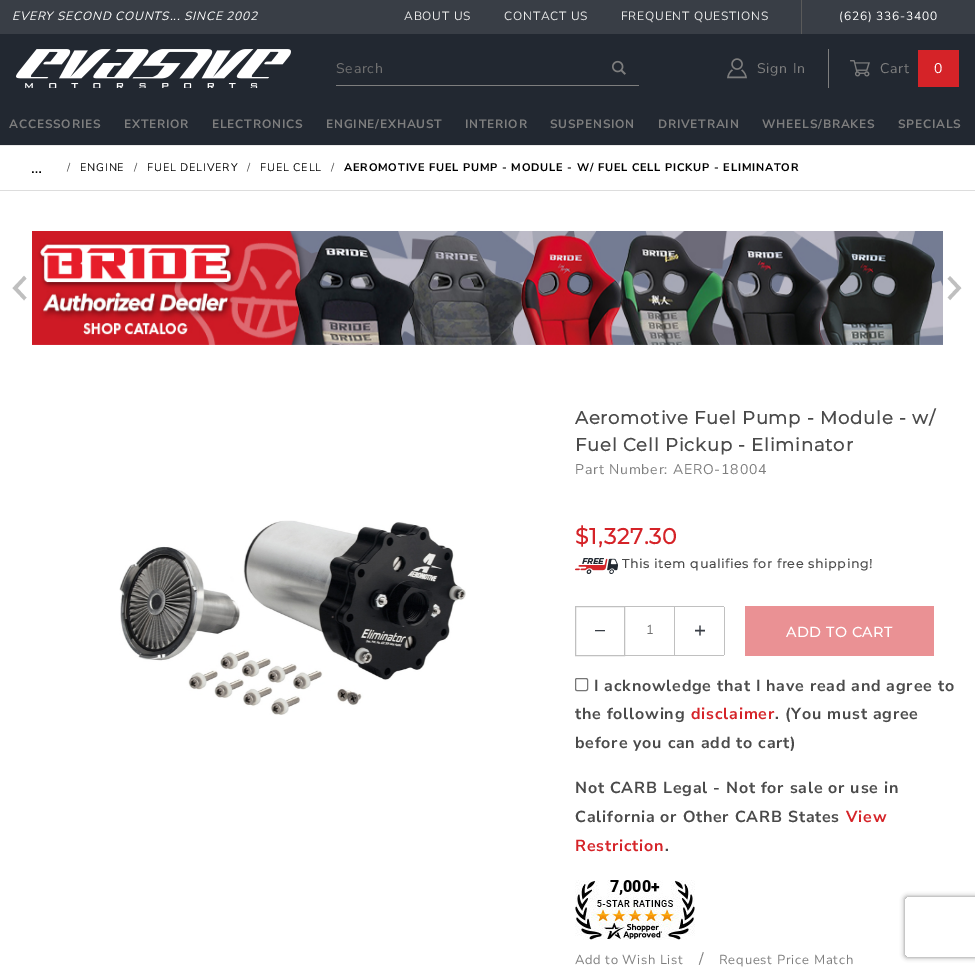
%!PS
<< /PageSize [975 971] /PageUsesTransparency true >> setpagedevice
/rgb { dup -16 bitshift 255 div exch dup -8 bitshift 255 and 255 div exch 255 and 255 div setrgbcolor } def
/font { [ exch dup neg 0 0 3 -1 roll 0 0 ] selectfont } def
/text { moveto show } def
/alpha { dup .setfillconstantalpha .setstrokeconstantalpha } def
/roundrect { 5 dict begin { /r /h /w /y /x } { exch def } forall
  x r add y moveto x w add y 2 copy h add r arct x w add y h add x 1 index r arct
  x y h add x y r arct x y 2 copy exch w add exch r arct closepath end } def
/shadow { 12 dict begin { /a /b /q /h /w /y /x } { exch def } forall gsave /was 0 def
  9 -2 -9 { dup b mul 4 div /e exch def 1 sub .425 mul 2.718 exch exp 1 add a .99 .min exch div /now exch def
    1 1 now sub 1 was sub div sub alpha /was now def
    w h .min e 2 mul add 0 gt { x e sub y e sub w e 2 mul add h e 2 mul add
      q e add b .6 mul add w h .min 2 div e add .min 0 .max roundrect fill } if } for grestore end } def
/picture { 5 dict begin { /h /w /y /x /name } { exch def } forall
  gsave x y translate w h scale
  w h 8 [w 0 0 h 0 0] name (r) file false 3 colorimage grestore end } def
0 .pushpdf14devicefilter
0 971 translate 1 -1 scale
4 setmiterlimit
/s1 { /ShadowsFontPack-Regular 10 font 16#393E46 rgb } def
16#FFFFFF rgb
0 0 975 971 rectfill
16#222831 rgb
0 34 975 111 rectfill
16#393E46 rgb
0 0 975 34 rectfill
/NunitoSans-Italic 12 font
16#FFFFFF rgb
12 20 moveto 0.8 0 (EVERY SECOND COUNTS... SINCE 2002) ashow
/NunitoSans-Regular 12 font
16#EAEAEA rgb
404 20 moveto 0.8 0 (ABOUT US) ashow
504 20 moveto 0.8 0 (CONTACT US) ashow
621 20 moveto 0.8 0 (FREQUENT QUESTIONS) ashow
16#5A5A5A rgb
801 0 1 34 rectfill
16#FFFFFF rgb
839 20 moveto 0.8 0 (\(626\) 336-3400) ashow
(pic1.raw) 16 49 275 39 picture
16#7E7E7E rgb
336 85 303 1 rectfill
/NunitoSans-Regular 14 font
16#707070 rgb
336 73 moveto 0.75 0 (Search) ashow
(pic2.raw) 612 60 14 15 picture
16#7E7E7E rgb
828 49 1 39 rectfill
(pic3.raw) 727 58 20 21 picture
757 73 moveto 0.8 0 (Sign In) ashow
(pic4.raw) 850 60 20 17 picture
880 73 moveto 0.8 0 (Cart) ashow
16#D52328 rgb
918 50 41 37 rectfill
16#FFFFFF rgb
934 73 moveto 0.8 0 (0) ashow
16#EAEAEA rgb
0 145 975 1 rectfill
/NunitoSans-Bold 12 font
16#7E7E7E rgb
9 128 moveto 0.8 0 (ACCESSORIES) ashow
124 128 moveto 0.8 0 (EXTERIOR) ashow
212 128 moveto 0.8 0 (ELECTRONICS) ashow
326 128 moveto 0.8 0 (ENGINE/EXHAUST) ashow
465 128 moveto 0.8 0 (INTERIOR) ashow
550 128 moveto 0.8 0 (SUSPENSION) ashow
658 128 moveto 0.8 0 (DRIVETRAIN) ashow
762 128 moveto 0.8 0 (WHEELS/BRAKES) ashow
898 128 moveto 0.8 0 (SPECIALS) ashow
16#DDDDDD rgb
0 190 975 1 rectfill
/NunitoSans-Regular 16 font
16#000000 rgb
31 173 moveto 0.8 0 (…) ashow
/NunitoSans-Regular 11 font
16#4A4A4A rgb
67 171 moveto 0.8 0 (/) ashow
16#000000 rgb
80 171 moveto 0.8 0 (ENGINE) ashow
16#4A4A4A rgb
134 171 moveto 0.8 0 (/) ashow
16#000000 rgb
147 171 moveto 0.8 0 (FUEL DELIVERY) ashow
16#4A4A4A rgb
247 171 moveto 0.8 0 (/) ashow
16#000000 rgb
260 171 moveto 0.8 0 (FUEL CELL) ashow
16#4A4A4A rgb
331 171 moveto 0.8 0 (/) ashow
/NunitoSans-Bold 11 font
16#000000 rgb
344 171 moveto 0.8 0 (AEROMOTIVE FUEL PUMP - MODULE - W/ FUEL CELL PICKUP - ELIMINATOR) ashow
/ShadowsFontPack-Regular 25 font
16#BFBFBF rgb
7 299 moveto 1 0 (2) ashow
(pic5.raw) 32 231 911 114 picture
942 299 moveto 1 0 (3) ashow
(pic6.raw) 119 520 347 195 picture
/Montserrat-Bold 18 font
16#4A4A4A rgb
575 424 moveto 0.8 0 (Aeromotive Fuel Pump - Module - w/) ashow
575 451 moveto 0.8 0 (Fuel Cell Pickup - Eliminator) ashow
/NunitoSans-Regular 14 font
16#7E7E7E rgb
575 474 moveto 0.8 0 (Part Number: AERO-18004) ashow
/Montserrat-Bold 22 font
16#D52328 rgb
575 544 moveto 0.8 0 ($1,327.30) ashow
(pic7.raw) 575 558 43 16 picture
/Montserrat-Bold 12.4 font
16#4A4A4A rgb
622 568 moveto 0.8 0 (This item qualifies for free shipping!) ashow
16#C0C0C0 rgb
575.5 606.5 49 49 rectstroke
s1
(<) 595 635 text
16#C0C0C0 rgb
625 606 99 1 rectfill
674 606 1 50 rectfill
625 655 99 1 rectfill
/NunitoSans-Regular 13 font
16#707070 rgb
646 634 moveto 1 0 (1) ashow
16#C0C0C0 rgb
724 607 1 48 rectfill
s1
(=) 695 635 text
16#EA9194 rgb
745 606 189 50 rectfill
/Montserrat-Bold 14 font
16#FFFFFF rgb
786 637 moveto 0.75 0 (ADD TO CART) ashow
16#767676 rgb
575.5 678.5 12 12 1.5 roundrect stroke
/NunitoSans-Bold 16 font
16#4A4A4A rgb
594 691 moveto 0.8 0 (I acknowledge that I have read and agree to) ashow
575 719 moveto 0.8 0 (the following) ashow
16#D52328 rgb
691 719 moveto 0.8 0 (disclaimer) ashow
16#4A4A4A rgb
775 719 moveto 0.8 0 (. \(You must agree) ashow
575 748 moveto 0.8 0 (before you can add to cart\)) ashow
575 793 moveto 0.8 0 (Not CARB Legal - Not for sale or use in) ashow
575 822 moveto 0.8 0 (California or Other CARB States) ashow
16#D52328 rgb
846 822 moveto 0.8 0 (View) ashow
575 851 moveto 0.8 0 (Restriction) ashow
16#4A4A4A rgb
665 851 moveto 0.8 0 (.) ashow
(pic8.raw) 575 880 120 60 picture
/Nunito-Regular 13 font
16#7E7E7E rgb
575 964 moveto 0.6 0 (Add to Wish List) ashow
/NunitoSans-Regular 16 font
699 964 moveto 0.8 0 (/) ashow
/Nunito-Regular 13 font
719 964 moveto 0.8 0 (Request Price Match) ashow
gsave
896 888 moveto 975 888 lineto 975 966 lineto 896 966 lineto closepath 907 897 moveto 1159 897 lineto 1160 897 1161 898 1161 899 curveto 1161 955 lineto 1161 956 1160 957 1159 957 curveto 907 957 lineto 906 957 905 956 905 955 curveto 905 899 lineto 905 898 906 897 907 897 curveto closepath eoclip newpath
16#808080 rgb
905 897 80 60 2 2.5 1 shadow
grestore
.poppdf14devicefilter showpage
